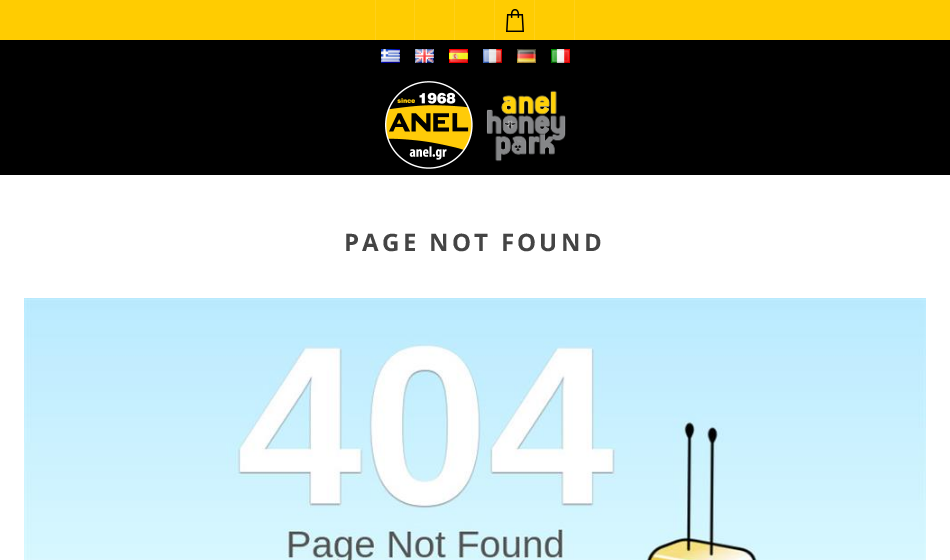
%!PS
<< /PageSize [950 560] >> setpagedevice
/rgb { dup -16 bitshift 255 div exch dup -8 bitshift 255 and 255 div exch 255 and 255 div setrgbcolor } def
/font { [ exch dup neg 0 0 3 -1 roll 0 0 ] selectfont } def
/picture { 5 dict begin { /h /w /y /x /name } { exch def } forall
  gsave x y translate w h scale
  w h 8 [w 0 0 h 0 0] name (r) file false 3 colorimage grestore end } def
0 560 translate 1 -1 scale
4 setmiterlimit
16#FFFFFF rgb
0 0 950 560 rectfill
16#FFCC01 rgb
0 0 950 40 rectfill
16#FFD11A rgb
414 0 1 40 rectfill
375 0 1 40 rectfill
454 0 1 40 rectfill
494 0 1 40 rectfill
(pic1.raw) 506 9 18 23 picture
534 0 1 40 rectfill
574 0 1 40 rectfill
16#000000 rgb
0 40 950 135 rectfill
(pic2.raw) 381 49 19 14 picture
(pic3.raw) 415 49 19 14 picture
(pic4.raw) 449 49 19 14 picture
(pic5.raw) 483 49 19 14 picture
(pic6.raw) 517 49 19 14 picture
(pic7.raw) 551 49 19 14 picture
(pic8.raw) 385 81 88 88 picture
(pic9.raw) 486 90 80 72 picture
/OpenSans-Bold 24 font
16#444444 rgb
344 251 moveto 3.25 0 (PAGE NOT FOUND) ashow
(pic10.raw) 24 298 902 262 picture
showpage
